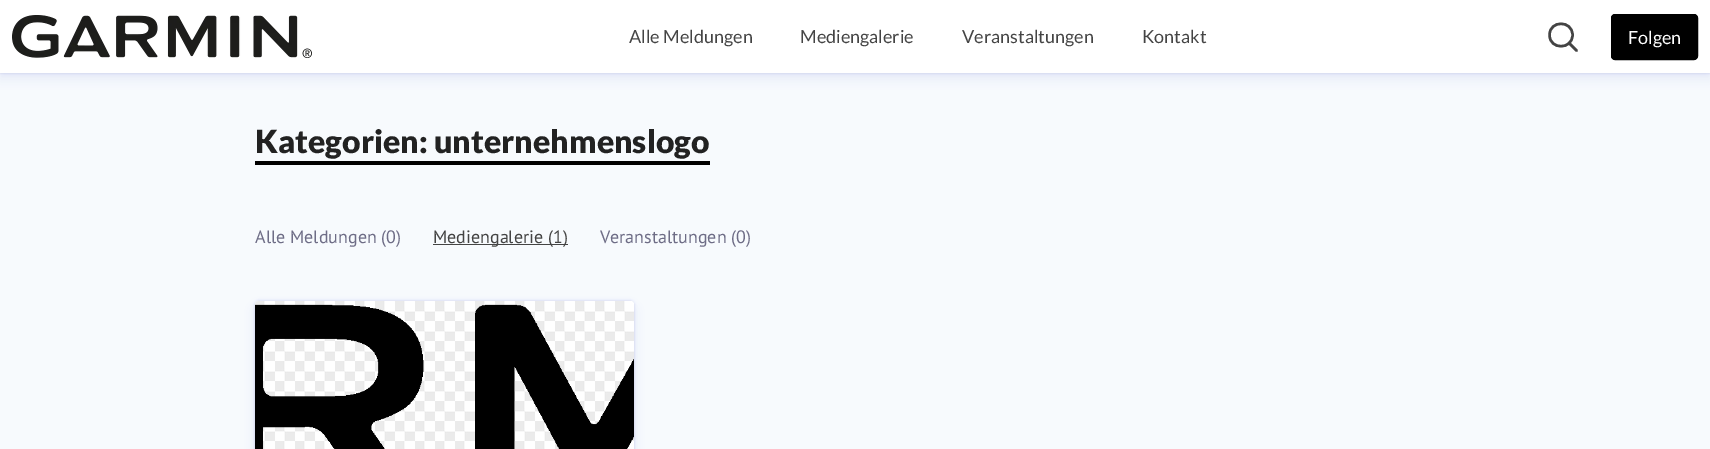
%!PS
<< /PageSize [1710 449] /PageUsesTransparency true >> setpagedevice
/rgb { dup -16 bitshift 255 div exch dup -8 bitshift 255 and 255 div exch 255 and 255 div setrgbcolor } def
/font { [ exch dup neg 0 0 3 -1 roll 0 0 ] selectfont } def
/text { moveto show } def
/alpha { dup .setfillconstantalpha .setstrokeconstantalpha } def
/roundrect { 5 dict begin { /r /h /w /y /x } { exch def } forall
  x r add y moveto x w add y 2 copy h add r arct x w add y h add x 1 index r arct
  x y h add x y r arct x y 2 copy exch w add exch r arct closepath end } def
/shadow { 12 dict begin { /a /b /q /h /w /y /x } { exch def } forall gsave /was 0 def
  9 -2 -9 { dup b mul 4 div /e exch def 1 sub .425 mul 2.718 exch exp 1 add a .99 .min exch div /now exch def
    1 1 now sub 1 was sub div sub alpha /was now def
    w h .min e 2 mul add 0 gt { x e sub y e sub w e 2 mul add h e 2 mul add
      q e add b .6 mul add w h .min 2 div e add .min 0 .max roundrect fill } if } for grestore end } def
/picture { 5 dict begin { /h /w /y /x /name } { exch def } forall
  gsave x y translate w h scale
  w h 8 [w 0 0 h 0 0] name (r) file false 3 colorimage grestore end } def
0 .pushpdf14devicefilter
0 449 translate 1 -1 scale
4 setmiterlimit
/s1 { /Lato-Regular 18 font 16#444444 rgb } def
/s2 { /Lato-Regular 18 font 16#FFFFFF rgb } def
/s3 { /Lato-Black 32 font 16#222222 rgb } def
/s4 { /PTSans-Regular 18 font 16#6E6D86 rgb } def
/s5 { /PTSans-Regular 18 font 16#444444 rgb } def
16#F7FAFD rgb
0 0 1710 449 rectfill
16#3149A4 rgb
0 0 1710 73 0 1 0.14 shadow
0 0 1710 73 0 1.5 0.1 shadow
0 6 1710 73 0 5 0.08 shadow
16#FFFFFF rgb
0 0 1710 73 rectfill
(pic1.raw) 12 15 300 43 picture
s1
(Alle Meldungen) 629 43 text
(Mediengalerie) 800 43 text
(Veranstaltungen) 962 43 text
(Kontakt) 1142 43 text
2.5 setlinewidth
1 setlinecap
1572.5 35 moveto 1572.5 50 1549.5 50 1549.5 35 curveto 1549.5 20 1572.5 20 1572.5 35 curveto closepath 1576.5 50.5 moveto 1569 43 lineto stroke
16#000000 rgb
1611.5 14.5 86 45 3.5 roundrect gsave fill grestore
1 setlinewidth
0 setlinecap
stroke
s2
(Folgen) 1628 44 text
16#000000 rgb
255 161 455 4 rectfill
s3
(Kategorien: unternehmenslogo) 255 153 text
s4
(Alle Meldungen \(0\)) 255 243 text
16#444444 rgb
433 244 135 1 rectfill
(Mediengalerie \(1\)) 433 243 text
s4
(Veranstaltungen \(0\)) 600 243 text
16#3149A4 rgb
255 301 379 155 4 1 0.14 shadow
255 301 379 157 4 1.5 0.1 shadow
255 307 379 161 4 5 0.08 shadow
(pic2.raw) 255 301 379 148 picture
(pic3.raw) 255 304 379 145 picture
.poppdf14devicefilter showpage
